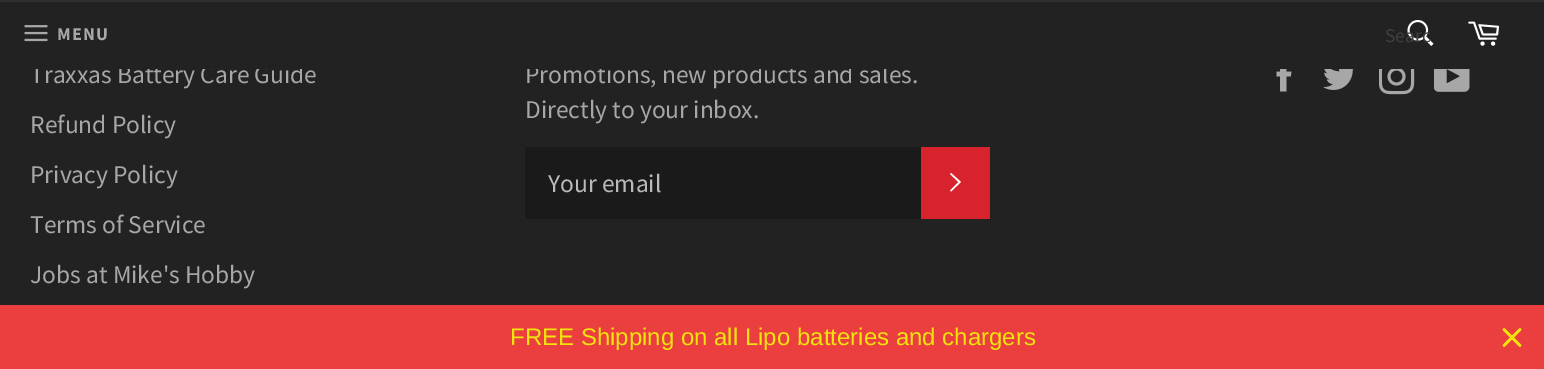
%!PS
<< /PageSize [1544 369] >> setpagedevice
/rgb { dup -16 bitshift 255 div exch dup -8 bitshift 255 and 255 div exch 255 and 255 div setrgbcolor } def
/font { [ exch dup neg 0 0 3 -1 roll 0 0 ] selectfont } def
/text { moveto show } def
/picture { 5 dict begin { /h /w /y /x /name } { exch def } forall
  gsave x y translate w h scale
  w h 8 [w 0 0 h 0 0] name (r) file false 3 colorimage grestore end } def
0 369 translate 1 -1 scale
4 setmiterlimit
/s1 { /SourceSansPro-Regular 25.5 font 16#A7A7A7 rgb } def
/s2 { /SourceSansPro-Regular 19.5 font 16#3F3F3F rgb } def
/s3 { /SourceSansPro-Regular 25.5 font 16#BABABA rgb } def
/s4 { /LiberationSans-Regular 24 font 16#F0E40D rgb } def
16#222222 rgb
0 0 1544 369 rectfill
s1
(Traxxas Battery Care Guide) 30 83 text
(Promotions, new products and sales.) 525 83 text
16#222222 rgb
30 64 857 5 rectfill
16#2F2F2F rgb
0 0 1544 2 rectfill
(pic1.raw) 24 25 24 17 picture
/SourceSansPro-Bold 18 font
16#A7A7A7 rgb
57 40 moveto 1 0 (MENU) ashow
(pic2.raw) 1407 19 27 27 picture
s2
(Searc) 1385 42 text
(pic3.raw) 1468 21 31 25 picture
s1
(Refund Policy) 30 133 text
(Privacy Policy) 30 183 text
(Terms of Service) 30 233 text
(Jobs at Mike's Hobby) 30 283 text
(Directly to your inbox.) 525 118 text
16#1A1A1A rgb
525 147 396 72 rectfill
s3
(Your email) 548 192 text
16#D8232F rgb
921 147 69 72 rectfill
16#FFFFFF rgb
950 174 moveto 951 173 lineto 961 182 lineto 951 191.5 lineto 950 190.5 lineto 958.5 182 lineto closepath fill
(pic4.raw) 1276 69 16 23 picture
(pic5.raw) 1323 69 31 21 picture
(pic6.raw) 1379 69 36 26 picture
(pic7.raw) 1434 69 36 23 picture
16#EB3E3E rgb
0 305 1544 64 rectfill
s4
(FREE Shipping on all Lipo batteries and chargers) 510 345 text
(pic8.raw) 1502 328 20 19 picture
showpage
